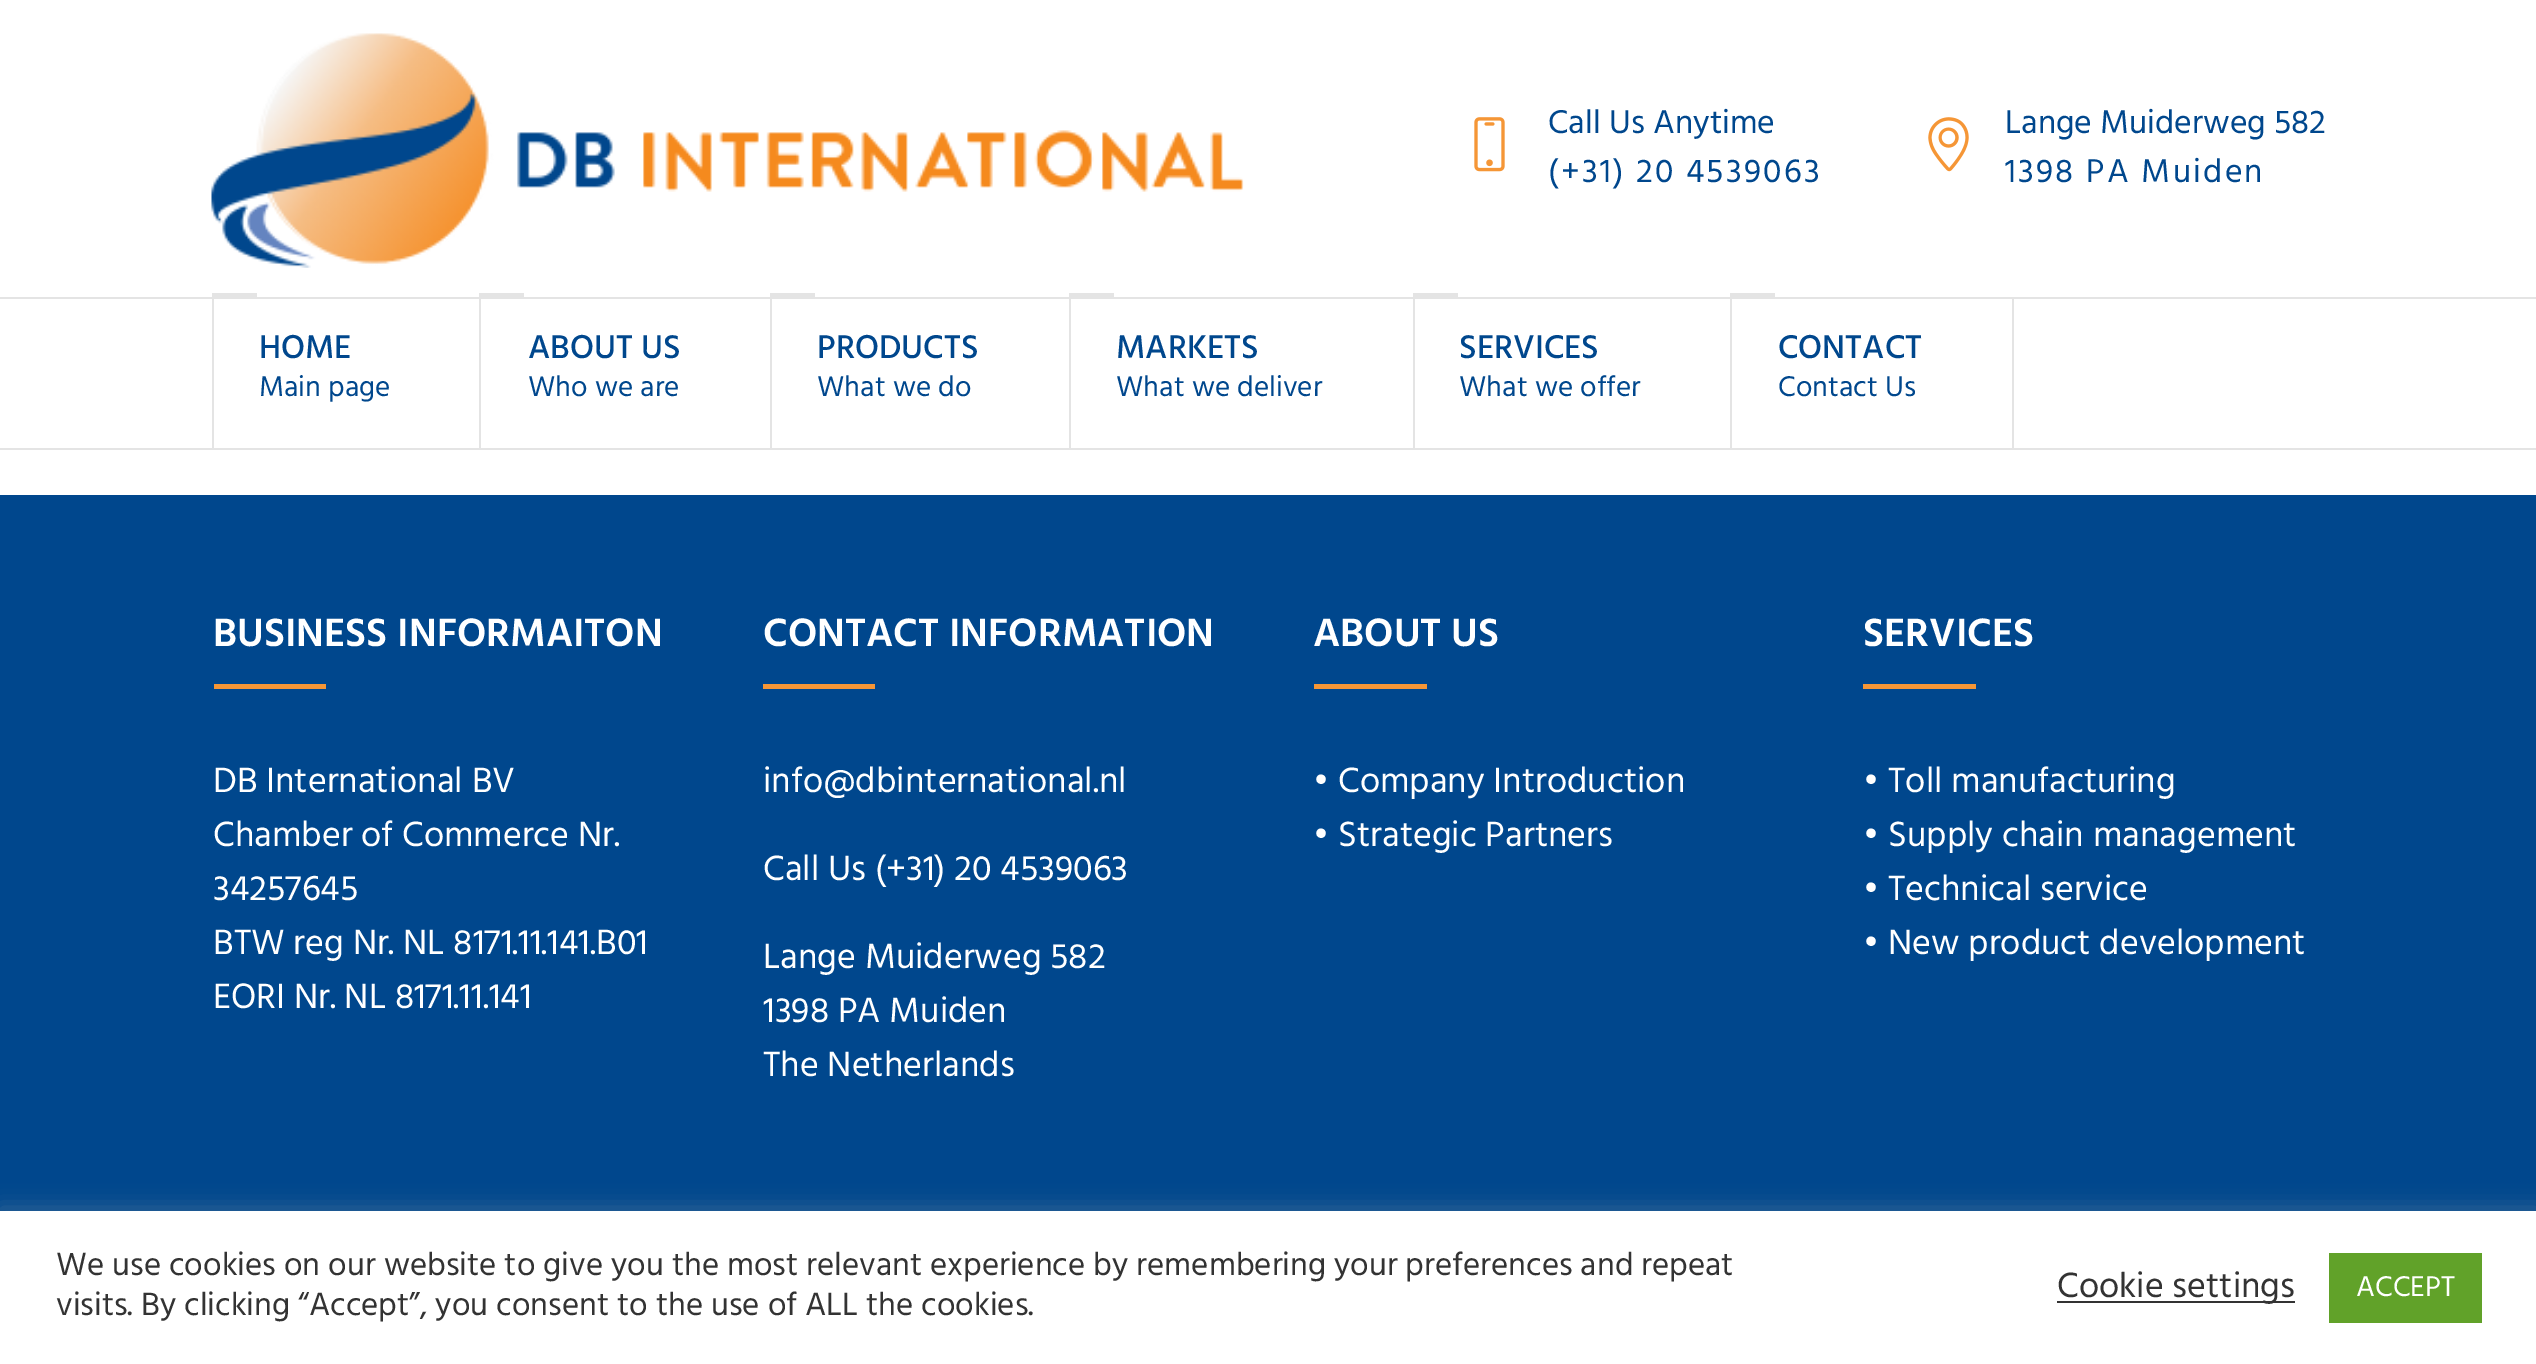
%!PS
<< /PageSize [2536 1364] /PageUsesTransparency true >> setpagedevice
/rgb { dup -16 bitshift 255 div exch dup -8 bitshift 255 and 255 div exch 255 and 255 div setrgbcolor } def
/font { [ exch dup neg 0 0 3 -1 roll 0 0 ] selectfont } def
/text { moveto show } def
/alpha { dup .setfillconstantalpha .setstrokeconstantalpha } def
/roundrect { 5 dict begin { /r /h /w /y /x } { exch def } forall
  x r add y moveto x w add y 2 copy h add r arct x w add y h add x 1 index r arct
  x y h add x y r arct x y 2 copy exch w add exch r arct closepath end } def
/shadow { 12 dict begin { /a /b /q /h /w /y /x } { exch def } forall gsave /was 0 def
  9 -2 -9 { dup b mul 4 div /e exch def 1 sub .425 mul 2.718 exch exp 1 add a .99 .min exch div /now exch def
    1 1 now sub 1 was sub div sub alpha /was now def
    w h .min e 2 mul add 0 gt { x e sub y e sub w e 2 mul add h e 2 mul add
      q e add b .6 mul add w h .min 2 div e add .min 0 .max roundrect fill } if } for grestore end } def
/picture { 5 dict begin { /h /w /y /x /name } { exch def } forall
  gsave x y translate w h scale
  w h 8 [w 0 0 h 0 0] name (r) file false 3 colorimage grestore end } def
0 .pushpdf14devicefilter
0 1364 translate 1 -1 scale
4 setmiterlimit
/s1 { /Hind-Regular 33.75 font 16#00478D rgb } def
/s2 { /Hind-Medium 33.75 font 16#00478D rgb } def
/s3 { /Hind-Regular 29.25 font 16#00478D rgb } def
/s4 { /Hind-SemiBold 40.5 font 16#FFFFFF rgb } def
/s5 { /Hind-Regular 36 font 16#FFFFFF rgb } def
/s6 { /Hind-Regular 33 font 16#333333 rgb } def
/s7 { /Hind-Regular 36 font 16#333333 rgb } def
/s8 { /Hind-Regular 29.25 font 16#FFFFFF rgb } def
16#FFFFFF rgb
0 0 2536 1364 rectfill
(pic1.raw) 211 33 1033 235 picture
(pic2.raw) 1474 117 31 55 picture
s1
(Call Us Anytime) 1548 133 text
1548 182 moveto 2.25 0 (\(+31\) 20 4539063) ashow
(pic3.raw) 1928 117 41 55 picture
(Lange Muiderweg 582) 2005 133 text
2005 182 moveto 2.25 0 (1398 PA Muiden) ashow
16#E4E4E4 rgb
0 297 2536 2 rectfill
0 448 2536 2 rectfill
479 297 2 153 rectfill
212 297 2 153 rectfill
212 293 45 4 rectfill
s2
(HOME) 259 358 text
s3
(Main page) 259 396 text
16#E4E4E4 rgb
770 297 2 153 rectfill
479 293 45 4 rectfill
s2
(ABOUT US) 528 358 text
s3
(Who we are) 528 396 text
16#E4E4E4 rgb
1069 297 2 153 rectfill
770 293 45 4 rectfill
s2
(PRODUCTS) 817 358 text
s3
(What we do) 817 396 text
16#E4E4E4 rgb
1413 297 2 153 rectfill
1069 293 45 4 rectfill
s2
(MARKETS) 1116 358 text
s3
(What we deliver) 1116 396 text
16#E4E4E4 rgb
1730 297 2 153 rectfill
1413 293 45 4 rectfill
s2
(SERVICES) 1459 358 text
s3
(What we offer) 1459 396 text
16#E4E4E4 rgb
2012 297 2 153 rectfill
1730 293 45 4 rectfill
s2
(CONTACT) 1778 358 text
s3
(Contact Us) 1778 396 text
0 495 2536 716 rectfill
s4
(BUSINESS INFORMAITON) 213 646 text
16#F59636 rgb
214 684 112 5 rectfill
s5
(DB International BV) 213 792 text
(Chamber of Commerce Nr.) 213 846 text
(34257645) 213 900 text
(BTW reg Nr. NL 8171.11.141.B01) 213 954 text
(EORI Nr. NL 8171.11.141) 213 1008 text
s4
(CONTACT INFORMATION) 763 646 text
16#F59636 rgb
763 684 112 5 rectfill
s5
(info@dbinternational.nl) 763 792 text
(Call Us \(+31\) 20 4539063) 763 880 text
(Lange Muiderweg 582) 763 968 text
(1398 PA Muiden) 763 1022 text
(The Netherlands) 763 1076 text
s4
(ABOUT US) 1313 646 text
16#F59636 rgb
1314 684 113 5 rectfill
s5
(• Company Introduction) 1313 792 text
(• Strategic Partners) 1313 846 text
s4
(SERVICES) 1863 646 text
16#F59636 rgb
1863 684 113 5 rectfill
s5
(• Toll manufacturing) 1863 792 text
(• Supply chain management) 1863 846 text
(• Technical service) 1863 900 text
(• New product development) 1863 954 text
16#ACABAB rgb
0 1208 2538 156 0 11 0.3 shadow
16#FFFFFF rgb
0 1211 2536 153 rectfill
s6
(We use cookies on our website to give you the most relevant experience by remembering your preferences and repeat) 56 1275 text
(visits. By clicking “Accept”, you consent to the use of ALL the cookies.) 56 1315 text
2057 1301 238 2 rectfill
s7
(Cookie settings) 2057 1297 text
16#61A229 rgb
2329 1253 153 70 rectfill
s8
(ACCEPT) 2356 1296 text
.poppdf14devicefilter showpage
